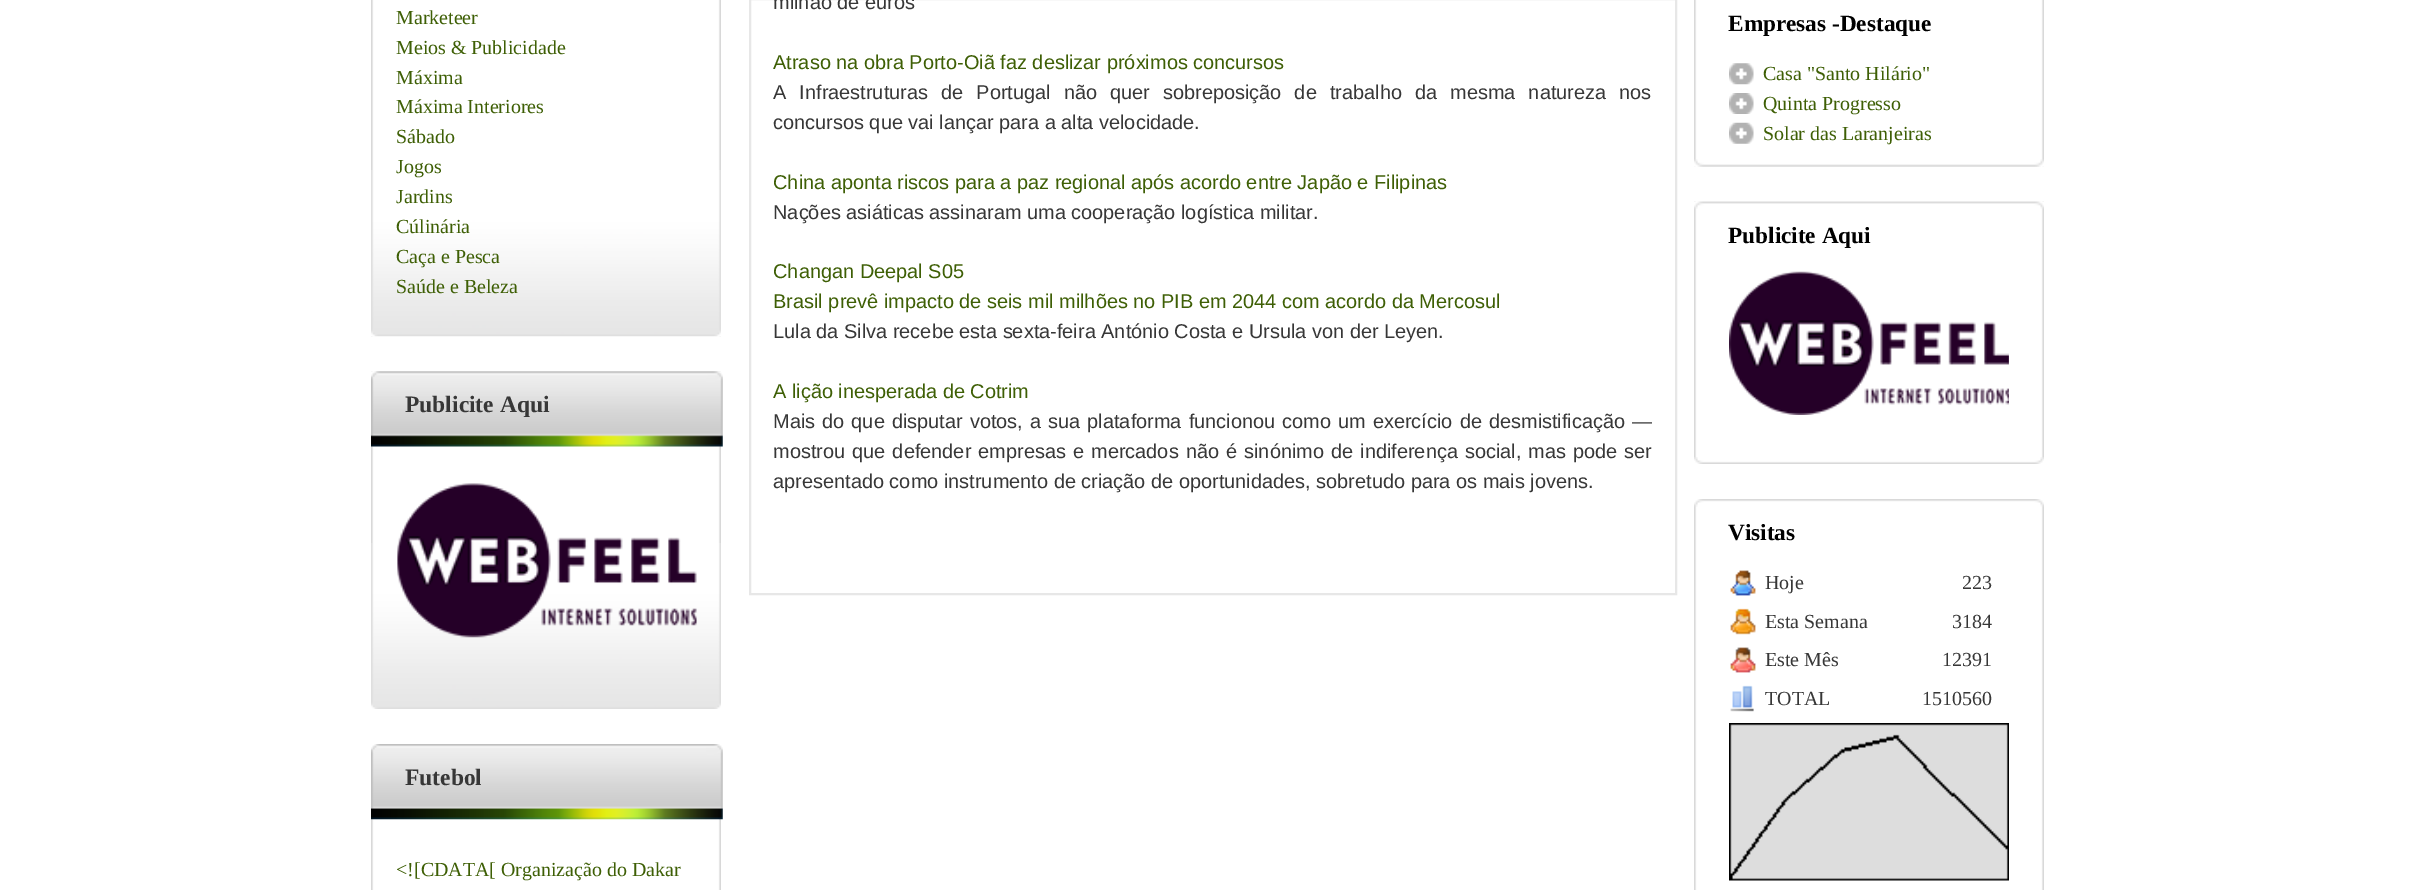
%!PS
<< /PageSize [2419 890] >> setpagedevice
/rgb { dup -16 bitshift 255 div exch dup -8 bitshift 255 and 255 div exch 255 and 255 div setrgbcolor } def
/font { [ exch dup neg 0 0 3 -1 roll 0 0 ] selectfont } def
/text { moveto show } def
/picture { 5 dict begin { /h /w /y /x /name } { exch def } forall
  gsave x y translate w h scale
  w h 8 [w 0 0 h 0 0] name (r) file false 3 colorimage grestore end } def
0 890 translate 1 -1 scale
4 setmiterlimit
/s1 { /LiberationSerif-Regular 19.95 font 16#3E5F05 rgb } def
/s2 { /LiberationSerif-Bold 23.5 font 16#373737 rgb } def
/s3 { /LiberationSans-Regular 19.95 font 16#373737 rgb } def
/s4 { /LiberationSans-Regular 19.95 font 16#3E5F05 rgb } def
/s5 { /LiberationSerif-Bold 23.25 font 16#000000 rgb } def
/s6 { /LiberationSerif-Regular 19.95 font 16#373737 rgb } def
16#FFFFFF rgb
0 0 2419 890 rectfill
(pic1.raw) 371 0 350 337 picture
(pic2.raw) 371 170 350 167 picture
s1
(Marketeer) 396 24 text
(Meios & Publicidade) 396 54 text
(Máxima) 396 84 text
(Máxima Interiores) 396 113 text
(Sábado) 396 143 text
(Jogos) 396 173 text
(Jardins) 396 203 text
(Cúlinária) 396 233 text
(Caça e Pesca) 396 263 text
(Saúde e Beleza) 396 293 text
(pic3.raw) 371 371 350 172 picture
(pic4.raw) 371 543 350 166 picture
(pic5.raw) 371 371 352 76 picture
s2
(Publicite Aqui) 405 412 text
(pic6.raw) 397 483 300 155 picture
(pic7.raw) 371 819 350 71 picture
(pic8.raw) 371 744 352 76 picture
(Futebol) 405 785 text
s1
(<![CDATA[ Organização do Dakar) 396 876 text
16#E7E7E7 rgb
2 setlinewidth
750 -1 926 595 rectstroke
s3
(milhão de euros) 773 9 text
s4
(Atraso na obra Porto-Oiã faz deslizar próximos concursos) 773 69 text
16#373737 rgb
773 99 moveto 7.5 0 32 (A Infraestruturas de Portugal não quer sobreposição de trabalho da mesma natureza nos) widthshow
(concursos que vai lançar para a alta velocidade.) 773 129 text
s4
(China aponta riscos para a paz regional após acordo entre Japão e Filipinas) 773 189 text
s3
(Nações asiáticas assinaram uma cooperação logística militar.) 773 219 text
s4
(Changan Deepal S05) 773 278 text
(Brasil prevê impacto de seis mil milhões no PIB em 2044 com acordo da Mercosul) 773 308 text
s3
(Lula da Silva recebe esta sexta-feira António Costa e Ursula von der Leyen.) 773 338 text
s4
(A lição inesperada de Cotrim) 773 398 text
16#373737 rgb
773 428 moveto 1.5 0 32 (Mais do que disputar votos, a sua plataforma funcionou como um exercício de desmistificação —) widthshow
773 458 moveto 1.5 0 32 (mostrou que defender empresas e mercados não é sinónimo de indiferença social, mas pode ser) widthshow
(apresentado como instrumento de criação de oportunidades, sobretudo para os mais jovens.) 773 488 text
(pic9.raw) 1694 0 350 167 picture
(pic10.raw) 1694 159 350 8 picture
(pic11.raw) 1694 166 350 1 picture
s5
(Empresas -Destaque) 1728 31 text
(pic12.raw) 1729 63 25 22 picture
s1
(Casa "Santo Hilário") 1763 80 text
(pic13.raw) 1729 93 25 21 picture
(Quinta Progresso) 1763 110 text
(pic14.raw) 1729 122 25 22 picture
(Solar das Laranjeiras) 1763 140 text
(pic15.raw) 1694 201 350 256 picture
(pic16.raw) 1694 201 350 8 picture
(pic17.raw) 1694 457 350 7 picture
s5
(Publicite Aqui) 1728 243 text
(pic18.raw) 1729 271 280 144 picture
(pic19.raw) 1694 507 350 383 picture
(pic20.raw) 1694 499 350 8 picture
(Visitas) 1728 540 text
(pic21.raw) 1730 570 26 26 picture
s6
(Hoje) 1765 589 text
(223) 1962 589 text
(pic22.raw) 1730 608 26 27 picture
(Esta Semana) 1765 628 text
(3184) 1952 628 text
(pic23.raw) 1730 647 26 26 picture
(Este Mês) 1765 666 text
(12391) 1942 666 text
(pic24.raw) 1730 685 24 27 picture
(TOTAL) 1765 705 text
(1510560) 1922 705 text
(pic25.raw) 1729 723 280 158 picture
showpage
